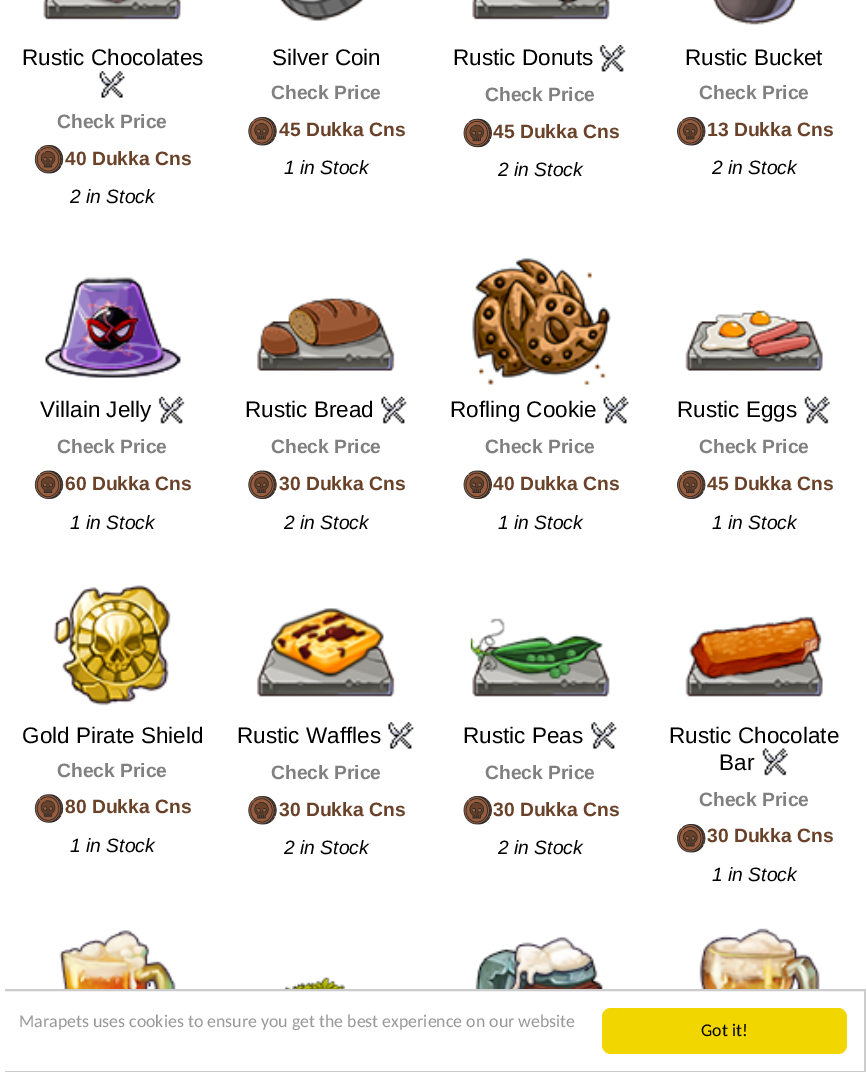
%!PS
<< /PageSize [866 1072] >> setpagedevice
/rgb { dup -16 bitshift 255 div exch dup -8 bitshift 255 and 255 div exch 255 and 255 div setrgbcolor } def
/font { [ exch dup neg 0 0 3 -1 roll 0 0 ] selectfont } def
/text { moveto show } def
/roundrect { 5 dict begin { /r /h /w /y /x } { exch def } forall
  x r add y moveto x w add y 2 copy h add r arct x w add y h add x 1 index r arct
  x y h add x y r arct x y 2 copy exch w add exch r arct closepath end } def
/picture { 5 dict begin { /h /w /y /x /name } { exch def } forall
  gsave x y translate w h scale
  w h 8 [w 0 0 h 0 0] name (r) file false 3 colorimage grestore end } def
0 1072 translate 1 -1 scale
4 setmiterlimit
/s1 { /LiberationSans-Regular 22.5 font 16#000000 rgb } def
/s2 { /LiberationSans-Bold 19.25 font 16#808080 rgb } def
/s3 { /LiberationSans-Bold 19.25 font 16#6A422A rgb } def
/s4 { /LiberationSans-Italic 19.25 font 16#000000 rgb } def
/s5 { /Carlito-Regular 17.85 font 16#999999 rgb } def
/s6 { /Carlito-Regular 17.85 font 16#000000 rgb } def
16#FFFFFF rgb
0 0 866 1072 rectfill
(pic1.raw) 43 0 138 20 picture
s1
(Rustic Chocolates) 22 65 text
(pic2.raw) 99 71 26 27 picture
s2
(Check Price) 57 128 text
(pic3.raw) 34 145 30 29 picture
s3
(40 Dukka Cns) 65 165 text
s4
(2 in Stock) 70 203 text
(pic4.raw) 279 0 84 21 picture
s1
(Silver Coin) 272 65 text
s2
(Check Price) 271 99 text
(pic5.raw) 248 117 29 29 picture
s3
(45 Dukka Cns) 279 136 text
s4
(1 in Stock) 284 174 text
(pic6.raw) 472 0 138 20 picture
s1
(Rustic Donuts) 453 65 text
(pic7.raw) 599 45 27 27 picture
s2
(Check Price) 485 101 text
(pic8.raw) 463 118 29 30 picture
s3
(45 Dukka Cns) 493 138 text
s4
(2 in Stock) 498 176 text
(pic9.raw) 713 0 84 25 picture
s1
(Rustic Bucket) 685 65 text
s2
(Check Price) 699 99 text
(pic10.raw) 677 117 29 29 picture
s3
(13 Dukka Cns) 707 136 text
s4
(2 in Stock) 712 174 text
(pic11.raw) 45 277 136 101 picture
s1
(Villain Jelly) 40 417 text
(pic12.raw) 158 396 27 28 picture
s2
(Check Price) 57 453 text
(pic13.raw) 34 470 30 29 picture
s3
(60 Dukka Cns) 65 490 text
s4
(1 in Stock) 70 529 text
(pic14.raw) 256 298 139 73 picture
s1
(Rustic Bread) 245 417 text
(pic15.raw) 381 396 26 28 picture
s2
(Check Price) 271 453 text
(pic16.raw) 248 470 29 29 picture
s3
(30 Dukka Cns) 279 490 text
s4
(2 in Stock) 284 529 text
(pic17.raw) 472 258 139 127 picture
s1
(Rofling Cookie) 450 417 text
(pic18.raw) 603 396 26 28 picture
s2
(Check Price) 485 453 text
(pic19.raw) 463 470 29 29 picture
s3
(40 Dukka Cns) 493 490 text
s4
(1 in Stock) 498 529 text
(pic20.raw) 685 310 138 61 picture
s1
(Rustic Eggs) 677 417 text
(pic21.raw) 804 396 26 28 picture
s2
(Check Price) 699 453 text
(pic22.raw) 677 470 29 29 picture
s3
(45 Dukka Cns) 707 490 text
s4
(1 in Stock) 712 529 text
(pic23.raw) 53 585 118 121 picture
s1
(Gold Pirate Shield) 22 743 text
s2
(Check Price) 57 777 text
(pic24.raw) 34 794 30 29 picture
s3
(80 Dukka Cns) 65 813 text
s4
(1 in Stock) 70 852 text
(pic25.raw) 256 608 139 89 picture
s1
(Rustic Waffles) 237 743 text
(pic26.raw) 388 722 26 27 picture
s2
(Check Price) 271 779 text
(pic5.raw) 248 796 29 29 picture
s3
(30 Dukka Cns) 279 816 text
s4
(2 in Stock) 284 854 text
(pic27.raw) 470 618 140 79 picture
s1
(Rustic Peas) 463 743 text
(pic26.raw) 591 722 26 27 picture
s2
(Check Price) 485 779 text
(pic28.raw) 463 796 29 29 picture
s3
(30 Dukka Cns) 493 816 text
s4
(2 in Stock) 498 854 text
(pic29.raw) 685 616 138 81 picture
s1
(Rustic Chocolate) 669 743 text
(Bar) 719 770 text
(pic30.raw) 762 748 26 28 picture
s2
(Check Price) 699 806 text
(pic10.raw) 677 824 29 29 picture
s3
(30 Dukka Cns) 707 842 text
s4
(1 in Stock) 712 881 text
(pic31.raw) 59 930 117 59 picture
(pic32.raw) 284 977 62 12 picture
(pic33.raw) 475 937 128 52 picture
(pic34.raw) 699 928 121 61 picture
16#CCCCCC rgb
2 setlinewidth
1 990 864 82 rectstroke
16#FFFFFF rgb
0 989 5 83 rectfill
s5
(Marapets uses cookies to ensure you get the best experience on our website) 19 1027 text
16#F1D600 rgb
602 1008 245 46 9 roundrect fill
s6
(Got it!) 701 1036 text
showpage
